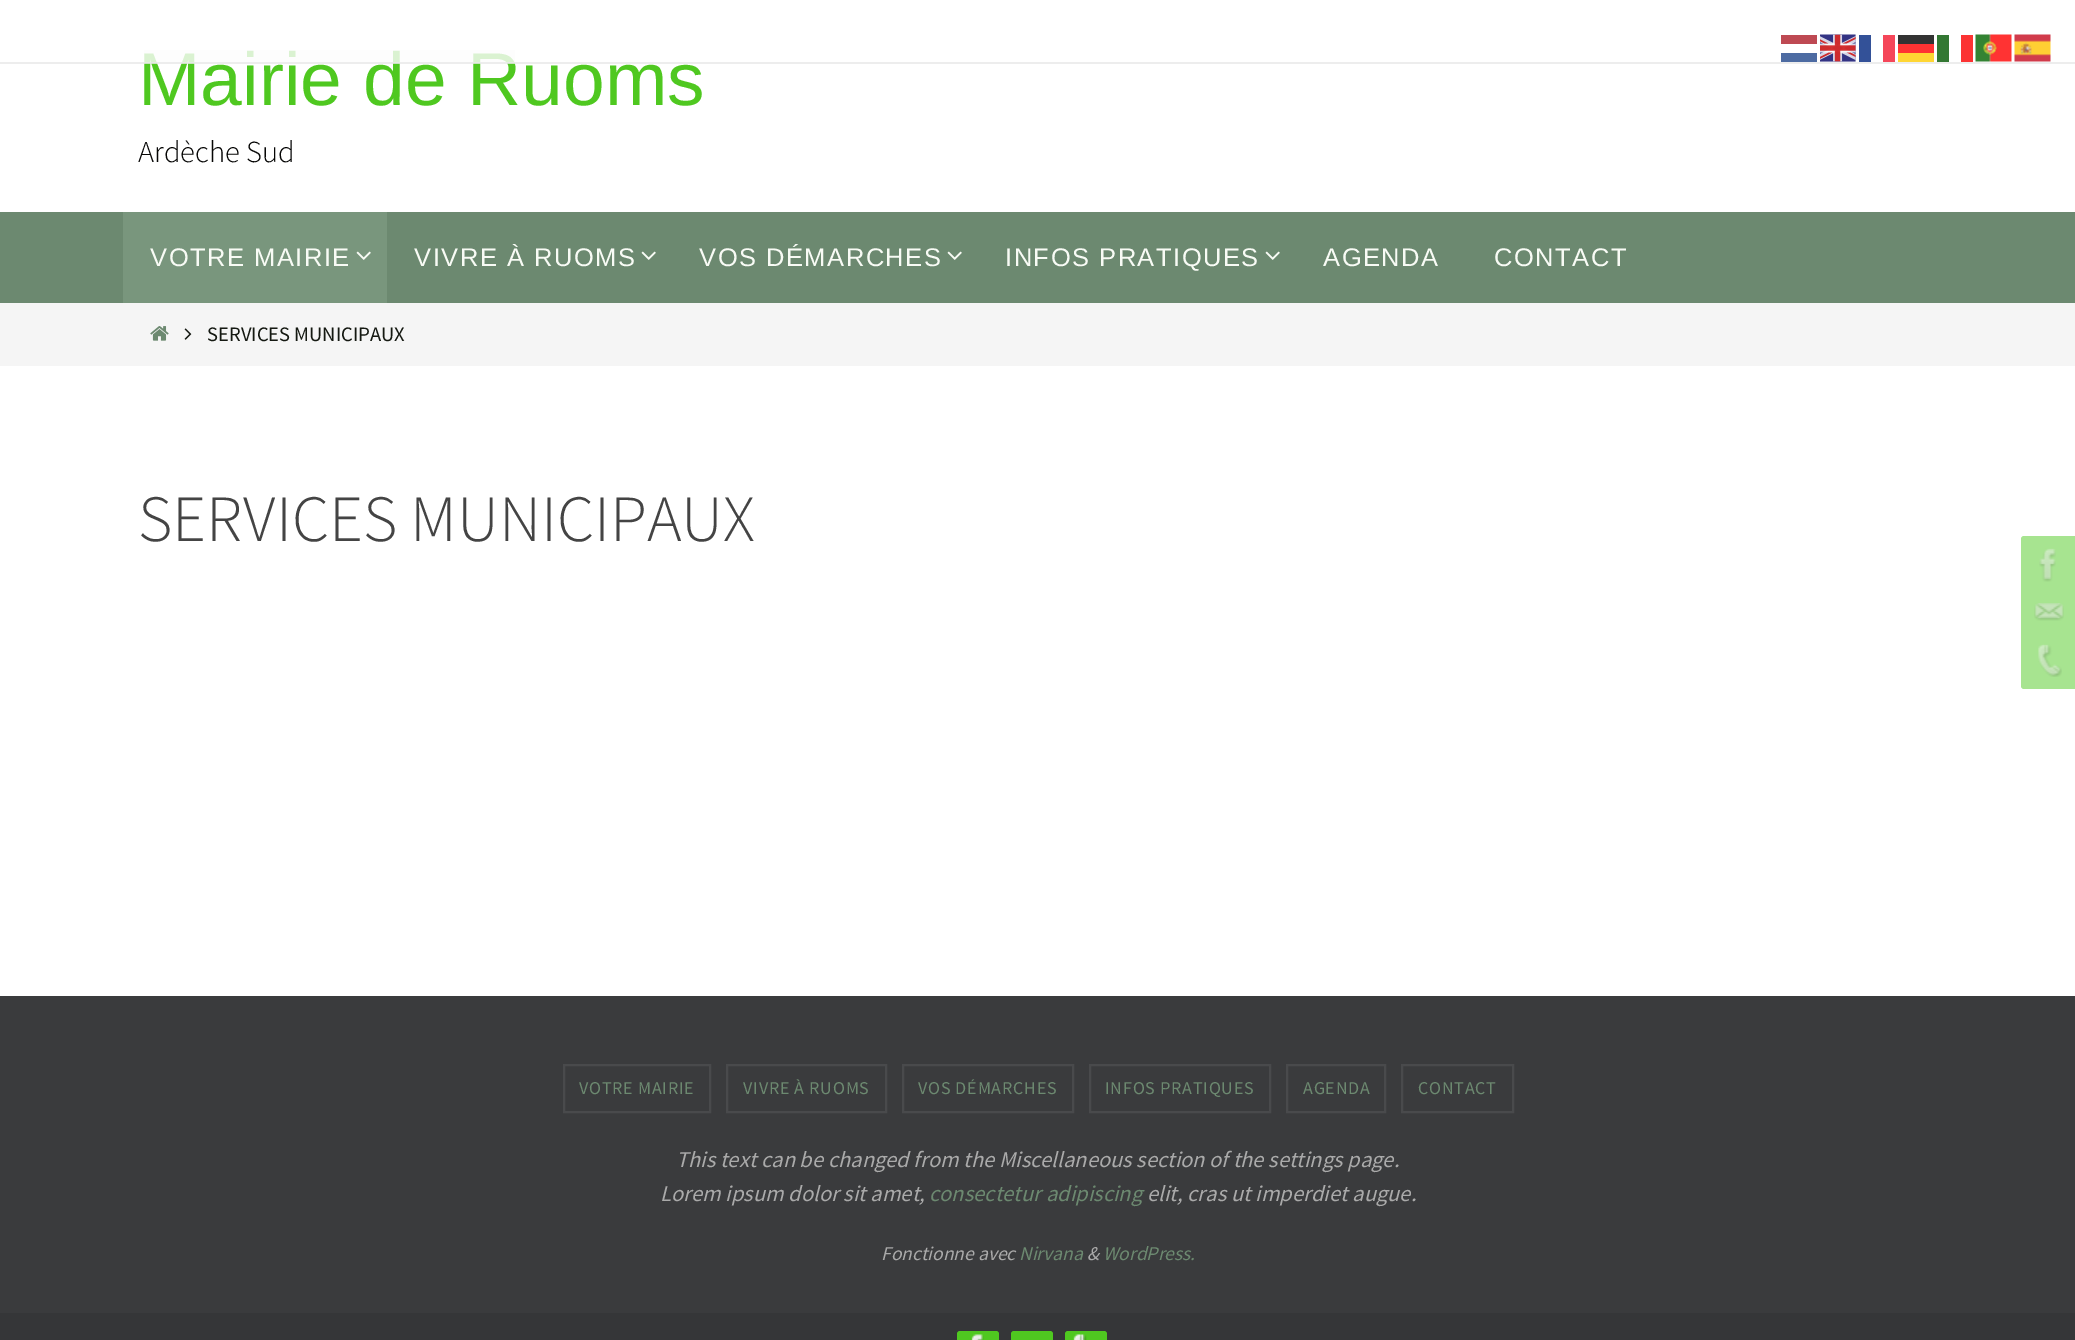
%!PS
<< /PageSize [2075 1340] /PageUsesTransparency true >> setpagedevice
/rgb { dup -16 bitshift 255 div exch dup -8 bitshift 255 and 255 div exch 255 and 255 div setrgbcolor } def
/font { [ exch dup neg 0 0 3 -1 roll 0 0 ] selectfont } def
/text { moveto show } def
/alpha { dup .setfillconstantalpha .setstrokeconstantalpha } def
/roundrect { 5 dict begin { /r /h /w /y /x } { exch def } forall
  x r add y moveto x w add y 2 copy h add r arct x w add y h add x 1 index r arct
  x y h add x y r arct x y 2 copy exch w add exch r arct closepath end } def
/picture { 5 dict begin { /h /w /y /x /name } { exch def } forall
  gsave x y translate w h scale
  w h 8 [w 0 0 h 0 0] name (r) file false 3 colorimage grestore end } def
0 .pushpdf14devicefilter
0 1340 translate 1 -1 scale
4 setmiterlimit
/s1 { /LiberationSans-Regular 75 font 16#4FC820 rgb } def
/s2 { /SourceSansPro-Light 30.5 font 16#060605 rgb } def
/s3 { /SourceSansPro-Regular 20.5 font 16#151912 rgb } def
/s4 { /SourceSansPro-Light 66 font 16#444444 rgb } def
/s5 { /SourceSansPro-Italic 22.5 font 16#AAAAAA rgb } def
/s6 { /SourceSansPro-Italic 22.5 font 16#6C8970 rgb } def
/s7 { /SourceSansPro-Italic 19.5 font 16#AAAAAA rgb } def
/s8 { /SourceSansPro-Italic 19.5 font 16#6C8970 rgb } def
16#FFFFFF rgb
0 0 2075 1340 rectfill
s1
(Mairie de Ruoms) 138 105 text
0.8 alpha
16#FDFDFD rgb
144 50 371 13 rectfill
16#E9E9E9 rgb
0 62 2075 2 rectfill
1 alpha
s2
(Ardèche Sud) 138 162 text
16#6C8970 rgb
0 212 2075 91 rectfill
16#79967D rgb
123 212 264 91 rectfill
/LiberationSans-Regular 25.5 font
16#F8FBF5 rgb
150 266 moveto 1.5 0 (VOTRE MAIRIE) ashow
(pic1.raw) 356 251 15 9 picture
414 266 moveto 1.5 0 (VIVRE À RUOMS) ashow
(pic2.raw) 641 251 15 9 picture
699 266 moveto 1.5 0 (VOS DÉMARCHES) ashow
(pic2.raw) 947 251 15 9 picture
1005 266 moveto 1.5 0 (INFOS PRATIQUES) ashow
(pic2.raw) 1265 251 15 9 picture
1323 266 moveto 1.5 0 (AGENDA) ashow
1494 266 moveto 1.5 0 (CONTACT) ashow
16#F5F5F5 rgb
0 303 2075 63 rectfill
(pic3.raw) 150 326 19 15 picture
(pic4.raw) 184 328 8 12 picture
s3
(SERVICES MUNICIPAUX) 207 341 text
s4
(SERVICES MUNICIPAUX) 138 541 text
16#3A3B3D rgb
0 996 2075 317 rectfill
16#494A4C rgb
2 setlinewidth
564 1065 146 47 rectstroke
/SourceSansPro-Regular 18 font
16#6C8970 rgb
579 1094 moveto 0.75 0 (VOTRE MAIRIE) ashow
16#494A4C rgb
727 1065 159 47 rectstroke
16#6C8970 rgb
743 1094 moveto 0.75 0 (VIVRE À RUOMS) ashow
16#494A4C rgb
903 1065 170 47 rectstroke
16#6C8970 rgb
918 1094 moveto 0.75 0 (VOS DÉMARCHES) ashow
16#494A4C rgb
1090 1065 180 47 rectstroke
16#6C8970 rgb
1105 1094 moveto 0.75 0 (INFOS PRATIQUES) ashow
16#494A4C rgb
1287 1065 98 47 rectstroke
16#6C8970 rgb
1303 1094 moveto 0.75 0 (AGENDA) ashow
16#494A4C rgb
1402 1065 111 47 rectstroke
16#6C8970 rgb
1418 1094 moveto 0.75 0 (CONTACT) ashow
s5
(This text can be changed from the Miscellaneous section of the settings page.) 676 1167 text
(Lorem ipsum dolor sit amet,) 660 1201 text
s6
(consectetur adipiscing) 929 1201 text
s5
(elit, cras ut imperdiet augue.) 1147 1201 text
s7
(Fonctionne avec) 881 1260 text
s8
(Nirvana) 1019 1260 text
s7
(&) 1087 1260 text
s8
(WordPress.) 1103 1260 text
16#353638 rgb
0 1313 2075 27 rectfill
16#4FC820 rgb
957 1331 42 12 3 roundrect fill
(pic5.raw) 970 1334 14 6 picture
1011 1331 42 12 3 roundrect fill
1065 1331 42 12 3 roundrect fill
(pic6.raw) 1073 1334 14 6 picture
16#A7E490 rgb
2021 536 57 57 3 roundrect fill
(pic7.raw) 2039 548 17 34 picture
2021 584 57 57 3 roundrect fill
(pic8.raw) 2034 603 30 18 picture
2021 632 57 57 3 roundrect fill
(pic9.raw) 2038 644 24 33 picture
16#BE4953 rgb
1781 35 36 9 rectfill
(pic10.raw) 1820 34 36 28 picture
16#335198 rgb
1859 35 12 27 rectfill
16#F54659 rgb
1883 35 12 27 rectfill
16#333333 rgb
1898 35 36 9 rectfill
16#337833 rgb
1937 35 12 27 rectfill
16#FC3333 rgb
1961 35 12 27 rectfill
(pic11.raw) 1975 34 37 28 picture
(pic12.raw) 2014 34 37 28 picture
16#FF3333 rgb
1898 44 36 9 rectfill
16#4D6BA2 rgb
1781 53 36 9 rectfill
16#FFD633 rgb
1898 53 36 9 rectfill
.poppdf14devicefilter showpage
